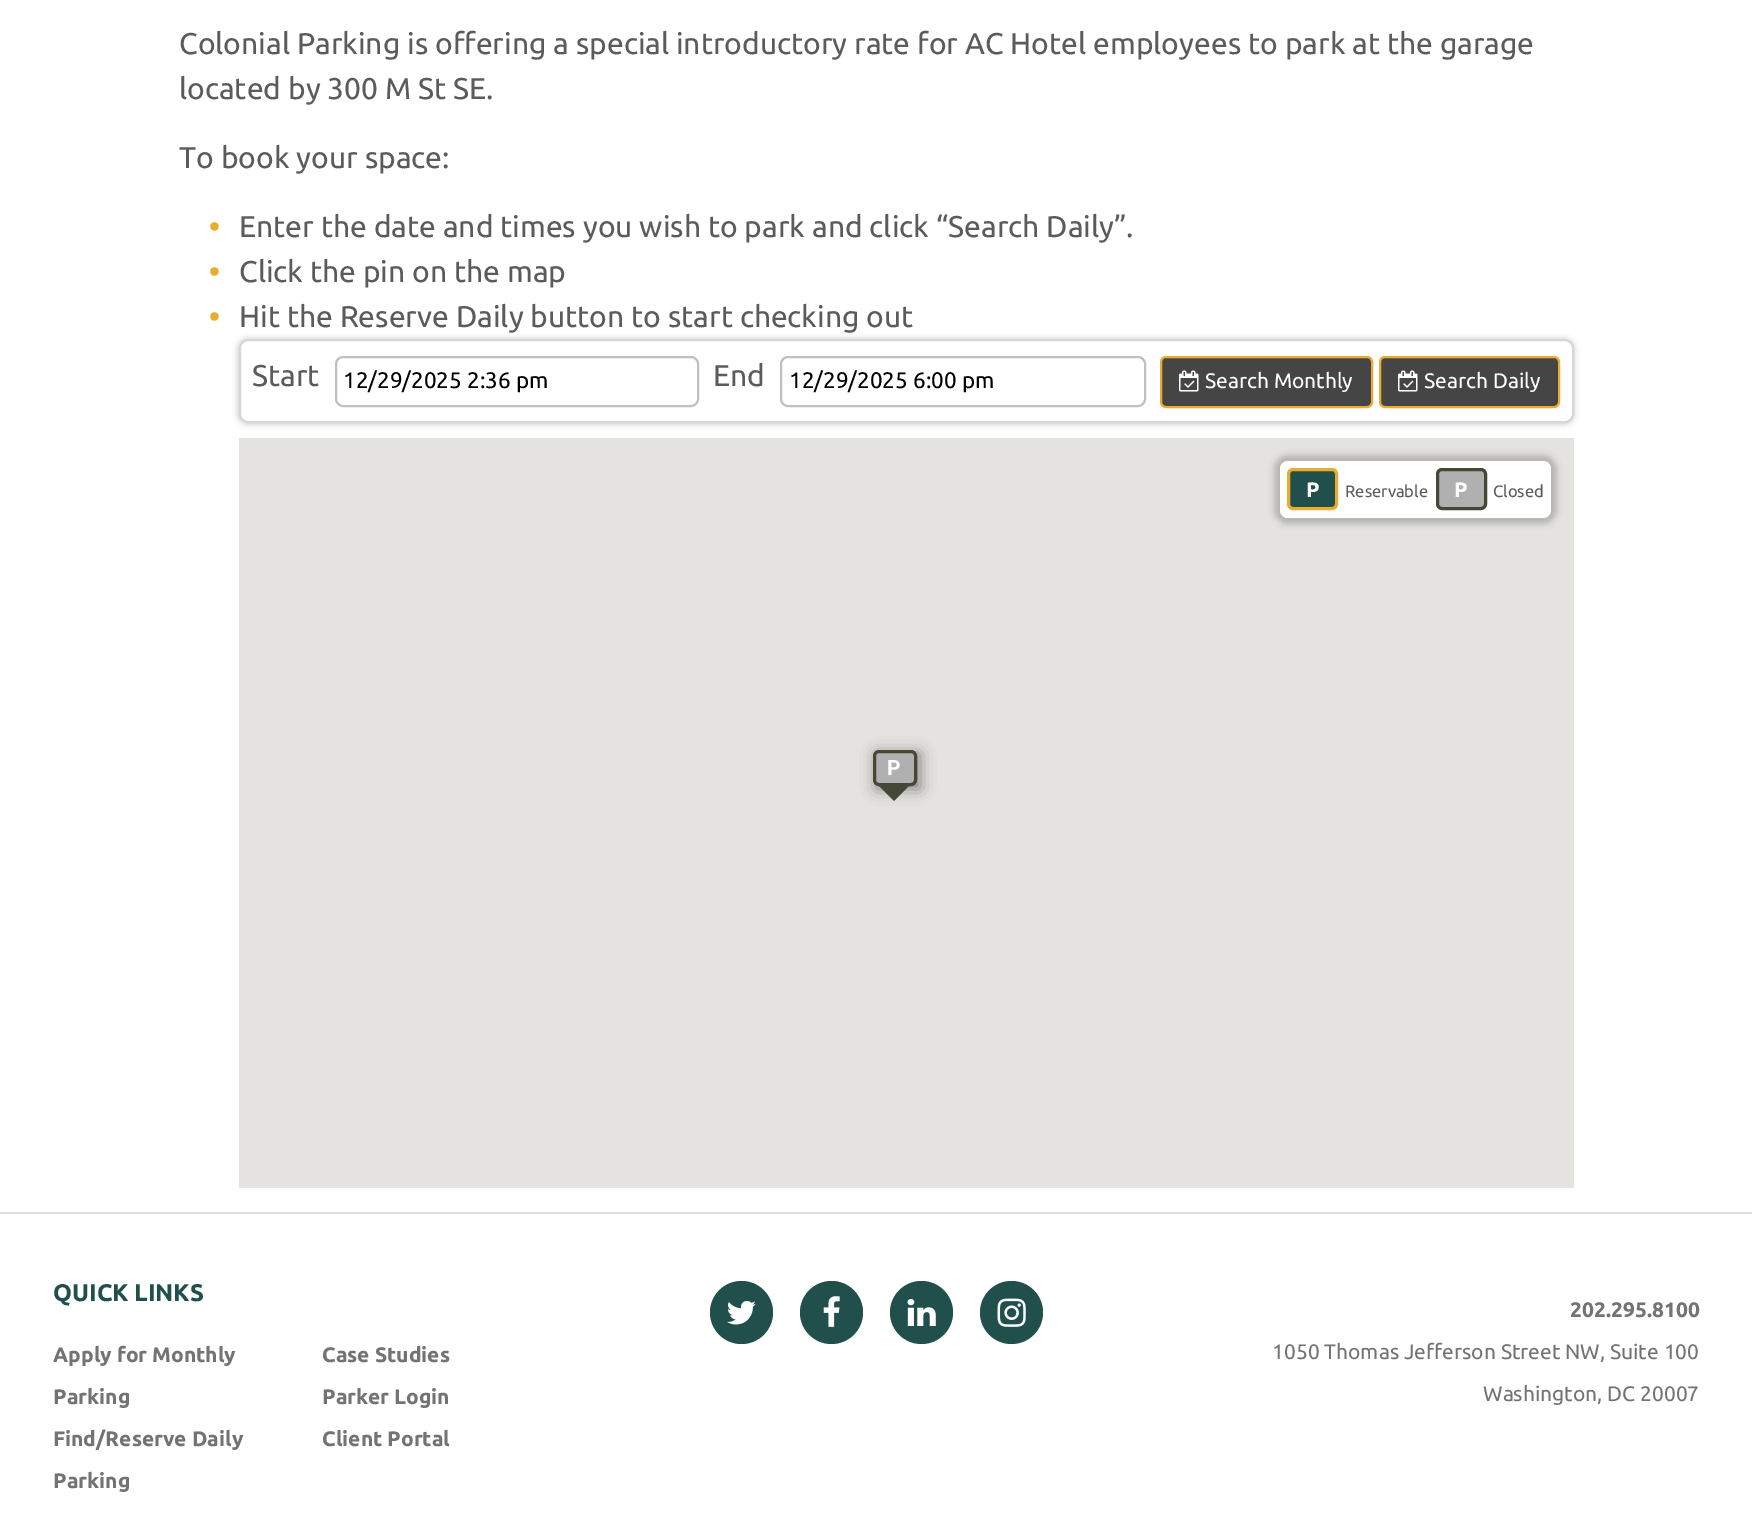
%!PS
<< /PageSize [1752 1513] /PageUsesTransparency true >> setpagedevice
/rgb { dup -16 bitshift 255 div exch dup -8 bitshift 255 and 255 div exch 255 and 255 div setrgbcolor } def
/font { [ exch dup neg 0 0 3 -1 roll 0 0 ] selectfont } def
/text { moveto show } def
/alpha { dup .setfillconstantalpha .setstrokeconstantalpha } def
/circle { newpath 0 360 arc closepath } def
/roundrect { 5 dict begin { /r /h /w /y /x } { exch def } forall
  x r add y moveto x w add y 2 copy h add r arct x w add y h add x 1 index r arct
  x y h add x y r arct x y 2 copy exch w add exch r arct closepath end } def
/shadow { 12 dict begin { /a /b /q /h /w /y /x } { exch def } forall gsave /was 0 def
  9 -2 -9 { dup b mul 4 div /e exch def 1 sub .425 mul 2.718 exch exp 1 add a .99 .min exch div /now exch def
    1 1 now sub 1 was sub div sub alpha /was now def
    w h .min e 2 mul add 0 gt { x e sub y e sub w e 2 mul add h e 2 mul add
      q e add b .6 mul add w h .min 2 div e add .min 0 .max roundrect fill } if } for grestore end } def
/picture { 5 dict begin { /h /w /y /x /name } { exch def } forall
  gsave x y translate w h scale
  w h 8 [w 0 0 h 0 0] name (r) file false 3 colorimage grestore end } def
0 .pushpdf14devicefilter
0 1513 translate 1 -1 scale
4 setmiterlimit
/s1 { /Ubuntu-Regular 30 font 16#5C5B5B rgb } def
/s2 { /Ubuntu-Bold 30 font 16#E8AD2F rgb } def
/s3 { /Ubuntu-Regular 22.5 font 16#000000 rgb } def
/s4 { /Ubuntu-Regular 21 font 16#FFFFFF rgb } def
/s5 { /Ubuntu-Bold 21 font 16#FFFFFF rgb } def
/s6 { /Ubuntu-Regular 16.5 font 16#5C5B5B rgb } def
/s7 { /Roboto-Bold 21 font 16#FFFFFF rgb } def
/s8 { /Ubuntu-Bold 24 font 16#21504C rgb } def
/s9 { /Ubuntu-Bold 21 font 16#737373 rgb } def
/s10 { /Ubuntu-Regular 21 font 16#737373 rgb } def
16#FFFFFF rgb
0 0 1752 1513 rectfill
s1
(Colonial Parking is offering a special introductory rate for AC Hotel employees to park at the garage) 179 54 text
(located by 300 M St SE.) 179 99 text
(To book your space:) 179 168 text
s2
(•) 209 237 text
s1
(Enter the date and times you wish to park and click “Search Daily”.) 239 237 text
s2
(•) 209 282 text
s1
(Click the pin on the map) 239 282 text
s2
(•) 209 327 text
gsave
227 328 moveto 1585 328 lineto 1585 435 lineto 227 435 lineto closepath 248 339 moveto 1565 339 lineto 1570 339 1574 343 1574 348 curveto 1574 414 lineto 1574 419 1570 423 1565 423 curveto 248 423 lineto 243 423 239 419 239 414 curveto 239 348 lineto 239 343 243 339 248 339 curveto closepath eoclip newpath
16#949494 rgb
237 338 1338 87 11 3 0.39 shadow
grestore
s1
(Hit the Reserve Daily button to start checking out) 239 327 text
16#D6D6D6 rgb
2 setlinewidth
240 340 1333 82 8 roundrect stroke
s1
(Start) 252 386 text
16#C0C0C0 rgb
336 357 362 49 7 roundrect stroke
s3
(12/29/2025 2:36 pm) 343 388 text
s1
(End) 713 386 text
16#C0C0C0 rgb
781 357 364 49 7 roundrect stroke
s3
(12/29/2025 6:00 pm) 789 388 text
16#454545 rgb
1161 357 211 50 5 roundrect gsave fill grestore
16#E8AD2F rgb
stroke
(pic1.raw) 1179 370 20 22 picture
s4
(Search Monthly) 1205 388 text
16#454545 rgb
1380 357 179 50 5 roundrect gsave fill grestore
16#E8AD2F rgb
stroke
(pic1.raw) 1398 370 20 22 picture
s4
(Search Daily) 1424 388 text
16#E5E3DF rgb
239 438 1335 750 rectfill
16#000000 rgb
1274 455 283 69 14 3 0.2 shadow
16#FFFFFF rgb
1280 461 271 57 8 roundrect fill
16#214F4C rgb
1288.5 469.5 48 39 4.5 roundrect gsave fill grestore
16#E8AD2F rgb
3 setlinewidth
stroke
s5
(P) 1306 497 text
s6
(Reservable) 1345 497 text
16#B0B0B0 rgb
1437.5 469.5 48 39 4.5 roundrect gsave fill grestore
16#454837 rgb
stroke
s5
(P) 1454 497 text
s6
(Closed) 1493 497 text
16#585858 rgb
876 753 44 36 0 7.5 0.7 shadow
16#B0B0B0 rgb
874.5 751.5 41 33 4.5 roundrect gsave fill grestore
16#454837 rgb
stroke
s7
(P) 887 775 text
16#454837 rgb
879 786 moveto 909 786 lineto 894 801 lineto closepath fill
16#DDDDDD rgb
0 1212 1752 2 rectfill
s8
(QUICK LINKS) 53 1301 text
s9
(Apply for Monthly) 53 1362 text
(Parking) 53 1404 text
(Case Studies) 322 1362 text
(Parker Login) 322 1404 text
(Find/Reserve Daily) 53 1446 text
(Parking) 53 1488 text
(Client Portal) 322 1446 text
16#21504C rgb
741.5 1312.5 31.5 circle fill
(pic2.raw) 727 1300 29 25 picture
831.5 1312.5 31.5 circle fill
(pic3.raw) 823 1296 17 31 picture
921.5 1312.5 31.5 circle fill
(pic4.raw) 907 1299 29 27 picture
1011.5 1312.5 31.5 circle fill
(pic5.raw) 997 1298 29 29 picture
s9
(202.295.8100) 1570 1317 text
s10
(1050 Thomas Jefferson Street NW, Suite 100) 1272 1359 text
(Washington, DC 20007) 1483 1401 text
.poppdf14devicefilter showpage
